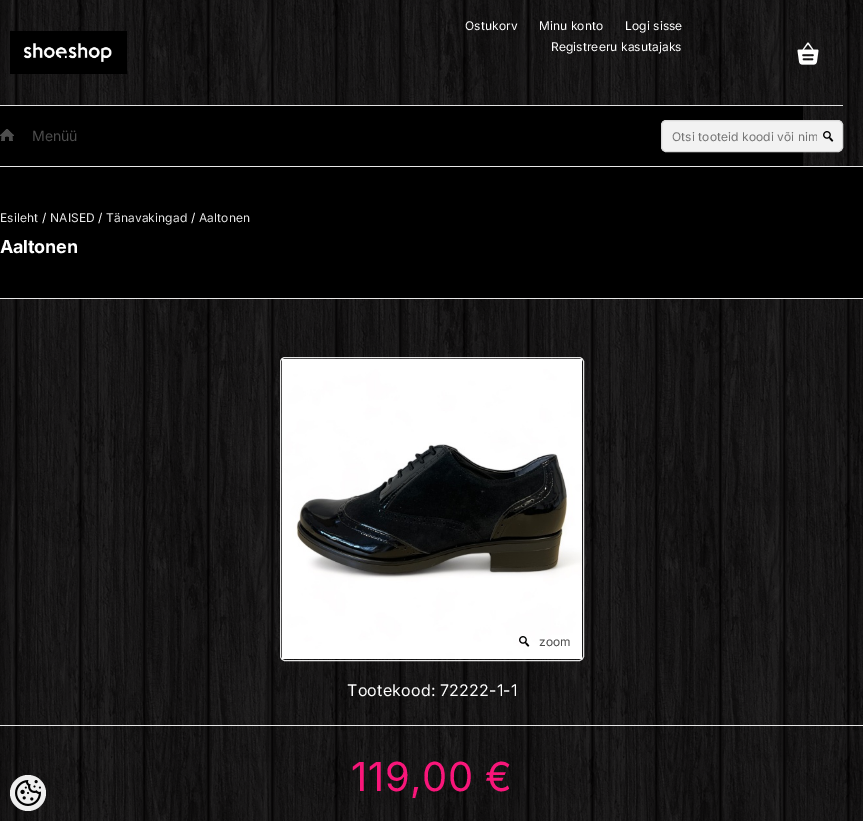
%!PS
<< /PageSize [863 821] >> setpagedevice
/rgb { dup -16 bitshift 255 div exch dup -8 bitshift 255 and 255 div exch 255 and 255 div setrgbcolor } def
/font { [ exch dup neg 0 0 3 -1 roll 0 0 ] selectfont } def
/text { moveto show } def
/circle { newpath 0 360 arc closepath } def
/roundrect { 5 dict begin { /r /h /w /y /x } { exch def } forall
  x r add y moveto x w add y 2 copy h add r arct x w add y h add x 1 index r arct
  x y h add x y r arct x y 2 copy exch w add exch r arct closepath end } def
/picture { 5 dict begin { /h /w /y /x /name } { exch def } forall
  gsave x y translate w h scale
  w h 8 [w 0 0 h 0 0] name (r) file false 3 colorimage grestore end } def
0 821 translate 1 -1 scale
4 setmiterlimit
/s1 { /Inter-Regular 14 font 16#4C4C4C rgb } def
16#FFFFFF rgb
0 0 863 821 rectfill
(pic1.raw) 0 0 863 821 picture
(pic2.raw) 10 31 117 43 picture
/Inter-Regular 12 font
465 30 moveto 0.1 0 (Ostukorv) ashow
539 30 moveto 0.1 0 (Minu konto) ashow
625 30 moveto 0.1 0 (Logi sisse) ashow
551 51 moveto 0.1 0 (Registreeru kasutajaks) ashow
(pic3.raw) 797 42 22 23 picture
16#000000 rgb
0 106 803 60 rectfill
16#E1E1E1 rgb
0 105 843 1 rectfill
(pic4.raw) 0 129 14 12 picture
s1
(Menüü) 32 141 text
16#F2F2F2 rgb
661.5 120.5 181 31 4.5 roundrect gsave fill grestore
16#D9D9D9 rgb
stroke
gsave
672 129 145 15 rectclip
/Inter-Regular 12 font
16#757575 rgb
672 141 moveto 0.1 0 (Otsi tooteid koodi või nim) ashow
grestore
(pic5.raw) 823 131 11 11 picture
16#000000 rgb
0 167 863 131 rectfill
16#E7E7E7 rgb
0 166 863 1 rectfill
0 298 863 1 rectfill
/Inter-Regular 12 font
16#E6E6E6 rgb
0 222 moveto 0.1 0 (Esileht) ashow
16#FFFFFF rgb
42 222 moveto 0.1 0 (/) ashow
16#E6E6E6 rgb
50 222 moveto 0.1 0 (NAISED) ashow
16#FFFFFF rgb
98 222 moveto 0.1 0 (/) ashow
16#E6E6E6 rgb
106 222 moveto 0.1 0 (Tänavakingad) ashow
16#FFFFFF rgb
191 222 moveto 0.1 0 (/) ashow
16#E6E6E6 rgb
199 222 moveto 0.1 0 (Aaltonen) ashow
/Inter-Bold 18 font
16#FFFFFF rgb
0 253 moveto -0.25 0 (Aaltonen) ashow
16#EEEEEE rgb
28 793 18 circle fill
(pic6.raw) 15 780 26 26 picture
16#E6E6E6 rgb
280.5 357.5 303 303 4.5 roundrect stroke
(pic7.raw) 282 359 300 300 picture
(pic8.raw) 519 636 11 11 picture
/Inter-Regular 12 font
16#4C4C4C rgb
539 646 moveto 0.1 0 (zoom) ashow
16#E6E6E6 rgb
0 725 863 1 rectfill
/Inter-Regular 16 font
16#FFFFFF rgb
347 696 moveto 0.2 0 (Tootekood: 72222-1-1) ashow
/Inter-Regular 40 font
16#F9167A rgb
351 791 moveto 0.5 0 (119,00 €) ashow
showpage
